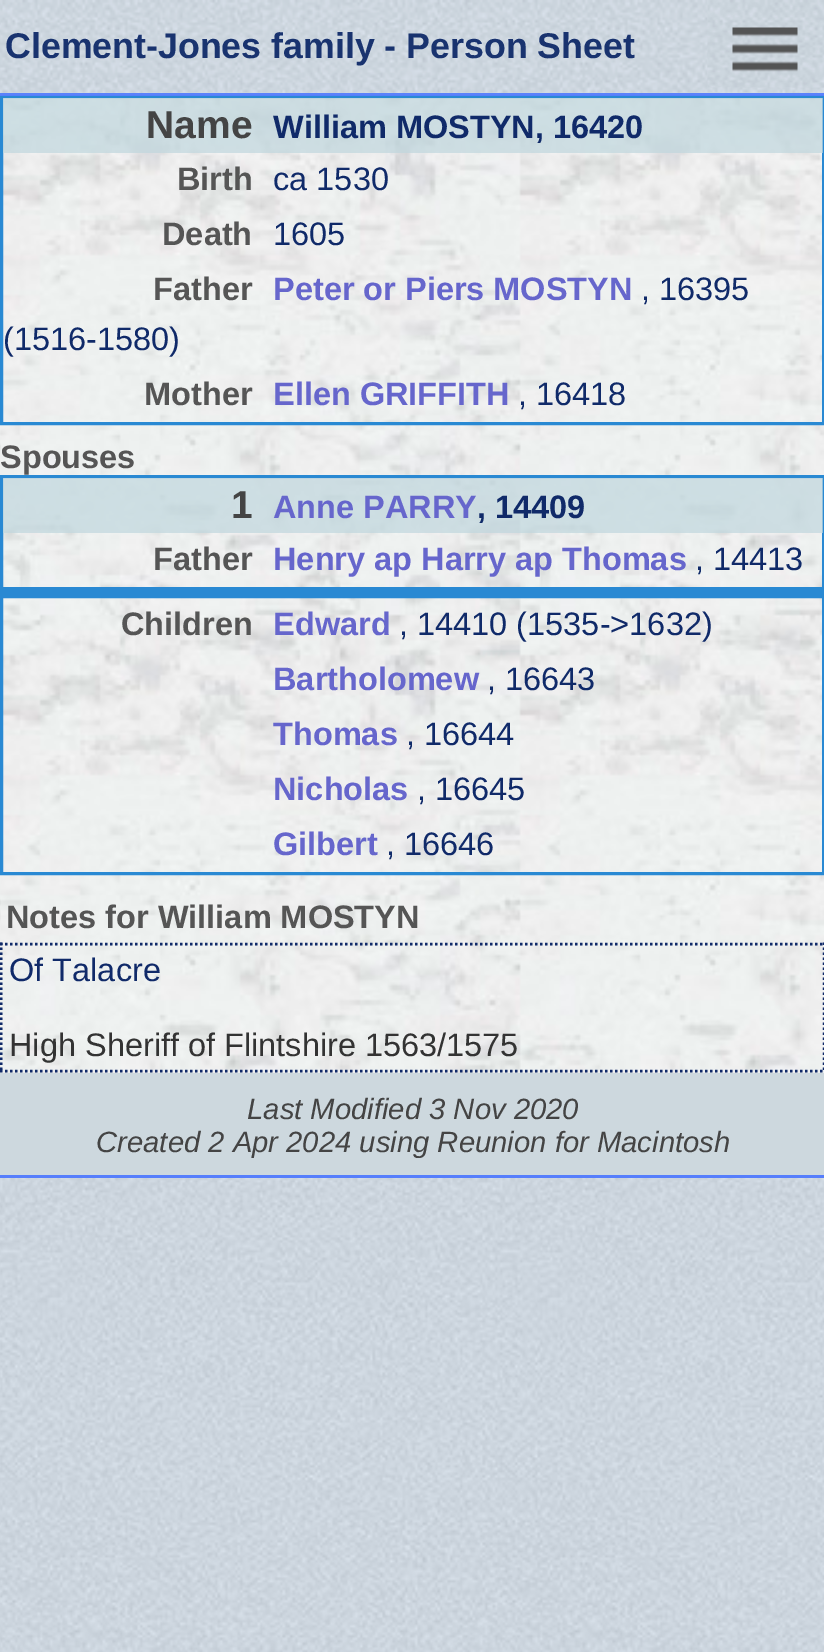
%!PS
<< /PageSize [824 1652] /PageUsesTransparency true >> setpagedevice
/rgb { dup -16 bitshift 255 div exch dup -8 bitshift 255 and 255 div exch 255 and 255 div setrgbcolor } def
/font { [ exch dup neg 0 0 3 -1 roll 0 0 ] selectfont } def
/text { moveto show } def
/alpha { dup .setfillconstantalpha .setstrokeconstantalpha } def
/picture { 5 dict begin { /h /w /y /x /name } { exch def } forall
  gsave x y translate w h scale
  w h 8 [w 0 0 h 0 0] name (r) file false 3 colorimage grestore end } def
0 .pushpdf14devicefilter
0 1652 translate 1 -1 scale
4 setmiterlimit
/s1 { /LiberationSans-Bold 35.75 font 16#19336F rgb } def
/s2 { /LiberationSans-Bold 39 font 16#444444 rgb } def
/s3 { /LiberationSans-Bold 32.5 font 16#102A69 rgb } def
/s4 { /LiberationSans-Bold 32.5 font 16#555555 rgb } def
/s5 { /LiberationSans-Regular 32.5 font 16#102A69 rgb } def
/s6 { /LiberationSans-Bold 32.5 font 16#6666CC rgb } def
/s7 { /LiberationSans-Regular 32.5 font 16#333333 rgb } def
/s8 { /LiberationSans-Italic 29.25 font 16#444444 rgb } def
16#FFFFFF rgb
0 0 824 1652 rectfill
(pic1.raw) 0 0 824 1652 picture
(pic5.raw) 0 92 824 981 picture
(pic2.raw) 0 0 824 95 picture
16#2989D3 rgb
3 setlinewidth
1.5 96.5 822 327 rectstroke
0.95 alpha
16#567EFC rgb
0 93 824 3 rectfill
1 alpha
s1
(Clement-Jones family - Person Sheet) 5 58 text
(pic3.raw) 707 0 117 88 picture
(pic4.raw) 732 27 66 45 picture
16#567EFC rgb
0 1175 824 3 rectfill
0.7 alpha
16#BFD6DD rgb
3 98 820 55 rectfill
1 alpha
s2
(Name) 146 138 text
s3
(William MOSTYN, 16420) 273 138 text
s4
(Birth) 177 190 text
s5
(ca 1530) 273 190 text
s4
(Death) 162 245 text
s5
(1605) 273 245 text
s4
(Father) 153 300 text
s6
(Peter or Piers MOSTYN) 273 300 text
s5
(, 16395) 641 300 text
(\(1516-1580\)) 3 350 text
s4
(Mother) 144 405 text
s6
(Ellen GRIFFITH) 273 405 text
s5
(, 16418) 518 405 text
s4
(Spouses) 0 468 text
16#2989D3 rgb
1.5 476.5 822 112 rectstroke
0.7 alpha
16#BFD6DD rgb
3 478 820 55 rectfill
1 alpha
s2
(1) 231 518 text
s6
(Anne PARRY) 273 518 text
s3
(, 14409) 477 518 text
s4
(Father) 153 570 text
s6
(Henry ap Harry ap Thomas) 273 570 text
s5
(, 14413) 695 570 text
16#2989D3 rgb
0 590 824 5 rectfill
1.5 596.5 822 277 rectstroke
s4
(Children) 121 635 text
s6
(Edward) 273 635 text
s5
(, 14410 \(1535->1632\)) 399 635 text
s6
(Bartholomew) 273 690 text
s5
(, 16643) 487 690 text
s6
(Thomas) 273 745 text
s5
(, 16644) 406 745 text
s6
(Nicholas) 273 800 text
s5
(, 16645) 417 800 text
s6
(Gilbert) 273 855 text
s5
(, 16646) 386 855 text
s4
(Notes for William MOSTYN) 6 928 text
16#102A69 rgb
2.5 setlinewidth
[2.5 2.5] 0 setdash
0 944 moveto 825 944 lineto stroke
824 942.5 moveto 824 1072.5 lineto stroke
0 1071 moveto 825 1071 lineto stroke
1 942.5 moveto 1 1072.5 lineto stroke
s5
(Of Talacre) 9 981 text
s7
(High Sheriff of Flintshire 1563/1575) 9 1056 text
16#CDD8DE rgb
0 1073 824 102 rectfill
s8
(Last Modified 3 Nov 2020) 247 1119 text
(Created 2 Apr 2024 using Reunion for Macintosh) 96 1152 text
.poppdf14devicefilter showpage
